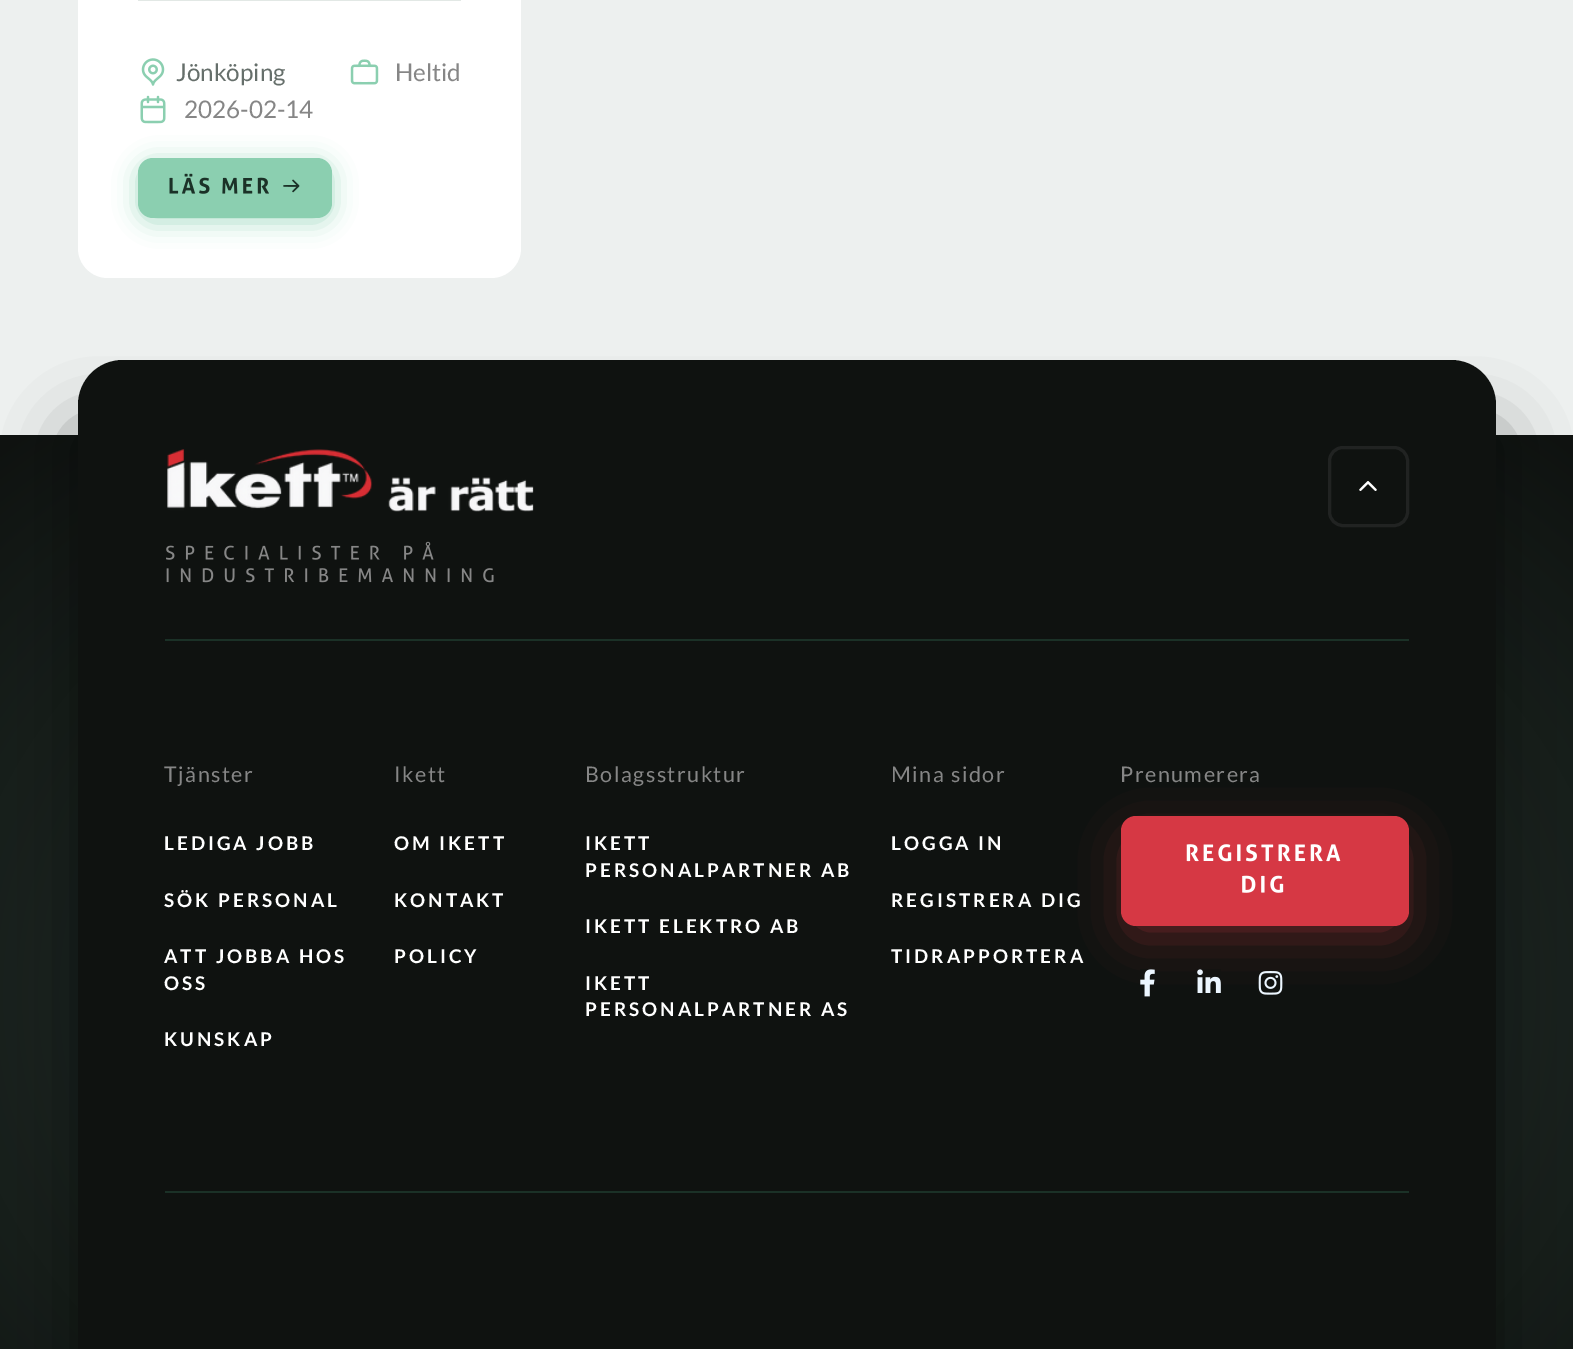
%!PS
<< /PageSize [1573 1349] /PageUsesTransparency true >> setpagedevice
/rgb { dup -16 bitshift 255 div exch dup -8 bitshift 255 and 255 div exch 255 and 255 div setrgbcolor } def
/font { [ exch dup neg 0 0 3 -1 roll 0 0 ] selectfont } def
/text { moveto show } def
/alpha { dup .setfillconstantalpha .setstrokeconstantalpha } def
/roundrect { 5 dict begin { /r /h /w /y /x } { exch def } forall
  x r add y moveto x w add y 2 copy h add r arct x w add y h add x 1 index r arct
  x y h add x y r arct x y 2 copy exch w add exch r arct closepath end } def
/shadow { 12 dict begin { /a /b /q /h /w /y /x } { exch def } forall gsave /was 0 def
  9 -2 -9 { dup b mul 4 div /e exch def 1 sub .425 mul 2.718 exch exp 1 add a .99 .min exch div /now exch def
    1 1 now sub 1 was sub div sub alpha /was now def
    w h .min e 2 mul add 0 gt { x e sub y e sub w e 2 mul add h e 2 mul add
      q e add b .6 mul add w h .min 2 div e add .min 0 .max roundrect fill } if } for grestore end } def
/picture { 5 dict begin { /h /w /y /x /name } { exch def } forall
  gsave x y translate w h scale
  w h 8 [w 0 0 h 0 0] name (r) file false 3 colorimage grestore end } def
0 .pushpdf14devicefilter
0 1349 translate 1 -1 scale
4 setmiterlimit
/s1 { /Lato-Regular 24.25 font 16#666F6B rgb } def
/s2 { /Lato-Regular 24.25 font 16#868686 rgb } def
16#EDF0EF rgb
0 0 1573 1349 rectfill
16#FFFFFF rgb
78 -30 443 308 30 roundrect fill
16#E2E8E5 rgb
138 0 323 1 rectfill
(pic1.raw) 141 58 24 28 picture
s1
(Jönköping) 176 81 text
(pic2.raw) 350 59 29 26 picture
s2
(Heltid) 395 81 text
(pic3.raw) 140 95 26 29 picture
(2026-02-14) 184 118 text
16#8BCFB0 rgb
138 162 194 60 15 12 0.72 shadow
138 158 194 60 15 roundrect fill
(pic4.raw) 169 173 100 21 picture
(pic5.raw) 283 179 17 14 picture
gsave 0 435 moveto 1573 435 lineto 1573 1349 lineto 0 1349 lineto closepath clip newpath 787 995 translate 1113 791 scale
<< /ShadingType 3 /ColorSpace /DeviceRGB /Coords [0 0 0 0 0 1] /Extend [true true] /Function << /FunctionType 2 /Domain [0 1] /C0 [0.184 0.275 0.235] /C1 [0.059 0.071 0.063] /N 1 >> >> shfill grestore
16#000000 rgb
78 435 1418 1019 0 35 0.5 shadow
16#0F1210 rgb
123 360 moveto 1451 360 lineto 1476 360 1496 380 1496 405 curveto 1496 602 lineto 78 602 lineto 78 405 lineto 78 380 98 360 123 360 curveto closepath fill
(pic6.raw) 167 449 367 63 picture
(pic7.raw) 166 541 268 19 picture
(pic8.raw) 166 568 328 15 picture
16#212322 rgb
3 setlinewidth
1329.5 447.5 78 78 13.5 roundrect stroke
(pic9.raw) 1359 481 18 10 picture
16#0F1210 rgb
78 602 1418 747 rectfill
16#1B3127 rgb
165 639 1244 2 rectfill
/Lato-Regular 21.5 font
16#868686 rgb
164 782 moveto 1.5 0 (Tjänster) ashow
/Lato-Bold 18.9 font
16#FFFFFF rgb
164 850 moveto 3 0 (LEDIGA JOBB) ashow
164 907 moveto 3 0 (SÖK PERSONAL) ashow
164 963 moveto 3 0 (ATT JOBBA HOS) ashow
164 990 moveto 3 0 (OSS) ashow
164 1046 moveto 3 0 (KUNSKAP) ashow
/Lato-Regular 21.5 font
16#868686 rgb
394 782 moveto 1.5 0 (Ikett) ashow
/Lato-Bold 18.9 font
16#FFFFFF rgb
394 850 moveto 3 0 (OM IKETT) ashow
394 907 moveto 3 0 (KONTAKT) ashow
394 963 moveto 3 0 (POLICY) ashow
/Lato-Regular 21.5 font
16#868686 rgb
585 782 moveto 1.5 0 (Bolagsstruktur) ashow
/Lato-Bold 18.9 font
16#FFFFFF rgb
585 850 moveto 3 0 (IKETT) ashow
585 877 moveto 3 0 (PERSONALPARTNER AB) ashow
585 933 moveto 3 0 (IKETT ELEKTRO AB) ashow
585 990 moveto 3 0 (IKETT) ashow
585 1016 moveto 3 0 (PERSONALPARTNER AS) ashow
/Lato-Regular 21.5 font
16#868686 rgb
891 782 moveto 1.5 0 (Mina sidor) ashow
/Lato-Bold 18.9 font
16#FFFFFF rgb
891 850 moveto 3 0 (LOGGA IN) ashow
16#D63844 rgb
1136 846 258 80 0 26 0.56 shadow
16#FFFFFF rgb
891 907 moveto 3 0 (REGISTRERA DIG) ashow
891 963 moveto 3 0 (TIDRAPPORTERA) ashow
/Lato-Regular 21.5 font
16#868686 rgb
1120 782 moveto 1.5 0 (Prenumerera) ashow
16#D63844 rgb
1121 816 288 110 15 roundrect fill
(pic10.raw) 1186 844 155 18 picture
(pic11.raw) 1242 875 42 18 picture
(pic12.raw) 1140 969 15 28 picture
(pic13.raw) 1197 969 24 24 picture
(pic14.raw) 1258 971 25 24 picture
16#1B3127 rgb
165 1191 1244 2 rectfill
.poppdf14devicefilter showpage
